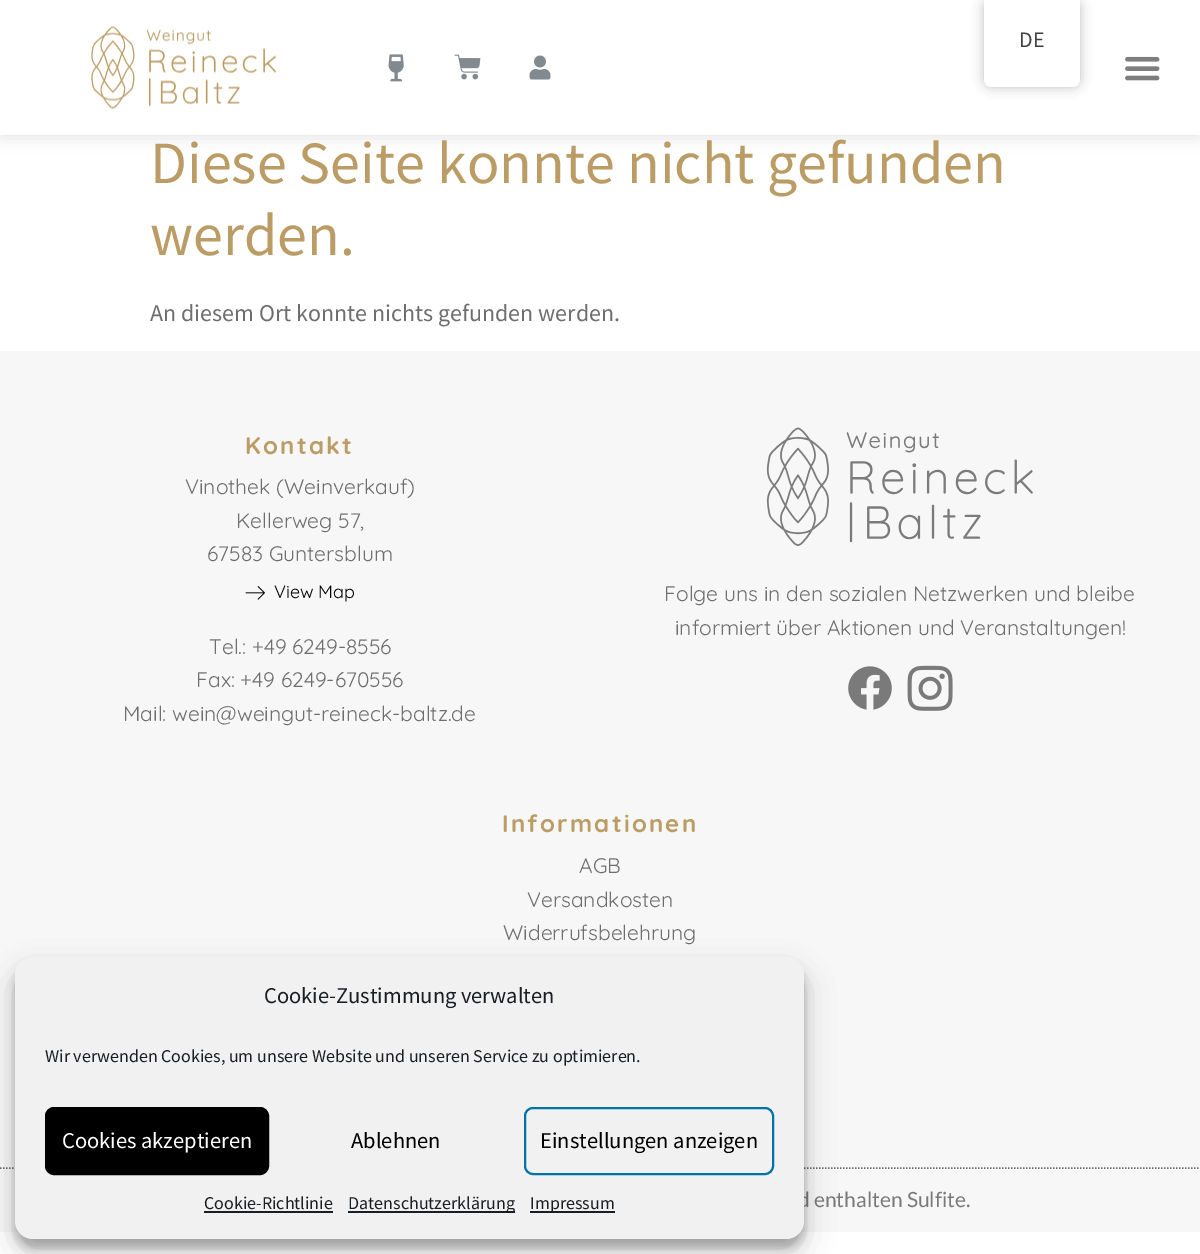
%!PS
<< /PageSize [1200 1254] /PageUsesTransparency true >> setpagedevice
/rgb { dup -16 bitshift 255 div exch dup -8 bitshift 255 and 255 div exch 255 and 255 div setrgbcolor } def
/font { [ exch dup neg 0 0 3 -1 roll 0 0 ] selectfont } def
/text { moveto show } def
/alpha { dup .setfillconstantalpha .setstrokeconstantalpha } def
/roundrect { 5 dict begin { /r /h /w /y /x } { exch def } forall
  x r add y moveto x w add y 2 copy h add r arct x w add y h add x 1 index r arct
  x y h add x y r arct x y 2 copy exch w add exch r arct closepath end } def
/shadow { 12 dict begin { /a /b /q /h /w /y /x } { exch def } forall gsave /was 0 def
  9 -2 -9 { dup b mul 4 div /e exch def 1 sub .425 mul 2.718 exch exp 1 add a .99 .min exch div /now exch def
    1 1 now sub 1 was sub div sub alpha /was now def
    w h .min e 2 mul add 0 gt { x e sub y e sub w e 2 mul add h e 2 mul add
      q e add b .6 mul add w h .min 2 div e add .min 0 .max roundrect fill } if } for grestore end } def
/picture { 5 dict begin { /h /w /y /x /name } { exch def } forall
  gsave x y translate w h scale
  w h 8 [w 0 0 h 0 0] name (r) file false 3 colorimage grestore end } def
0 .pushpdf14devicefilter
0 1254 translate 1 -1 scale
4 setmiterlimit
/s1 { /SourceSansPro-Regular 22 font 16#404040 rgb } def
/s2 { /SourceSansPro-Regular 60 font 16#BB9C64 rgb } def
/s3 { /SourceSansPro-Regular 24 font 16#6E6E6E rgb } def
/s4 { /Quicksand-Regular 21 font 16#6E6E6E rgb } def
/s5 { /Quicksand-Regular 18 font 16#000000 rgb } def
/s6 { /Lato-Regular 21 font 16#7A7A7A rgb } def
/s7 { /SourceSansPro-Regular 22.5 font 16#191E23 rgb } def
/s8 { /SourceSansPro-Regular 18 font 16#191E23 rgb } def
/s9 { /SourceSansPro-Regular 22.5 font 16#FFFFFF rgb } def
/s10 { /SourceSansPro-Regular 22.5 font 16#000000 rgb } def
16#FFFFFF rgb
0 0 1200 1254 rectfill
16#000000 rgb
0 3 1200 135 0 7.5 0.1 shadow
16#FFFFFF rgb
0 0 1200 135 rectfill
(pic1.raw) 91 26 185 83 picture
(pic2.raw) 388 54 16 28 picture
(pic3.raw) 454 54 27 26 picture
(pic4.raw) 529 55 22 25 picture
(pic5.raw) 1125 56 35 25 picture
16#000000 rgb
984 0 96 87 8 6 0.25 shadow
16#FFFFFF rgb
984 0 moveto 1080 0 lineto 1080 79 lineto 1080 83.5 1076.5 87 1072 87 curveto 992 87 lineto 987.5 87 984 83.5 984 79 curveto closepath fill
s1
(DE) 1019 47 text
s2
(Diese Seite konnte nicht gefunden) 150 183 text
(werden.) 150 255 text
s3
(An diesem Ort konnte nichts gefunden werden.) 150 321 text
16#F7F7F7 rgb
0 351 1200 881 rectfill
16#6E6E6E rgb
1.5 setlinewidth
[1.5 1.5] 0 setdash
0 1168 moveto 1200 1168 lineto stroke
/Quicksand-Bold 24 font
16#BB9C64 rgb
245 454 moveto 2.25 0 (Kontakt) ashow
s4
(Vinothek \(Weinverkauf\)) 185 494 text
(Kellerweg 57,) 236 528 text
(67583 Guntersblum) 207 561 text
(pic6.raw) 245 586 20 14 picture
s5
(View Map) 274 598 text
s4
(Tel.: +49 6249-8556) 209 654 text
(Fax: +49 6249-670556) 196 687 text
(Mail: wein@weingut-reineck-baltz.de) 123 721 text
(pic7.raw) 766 427 267 119 picture
(Folge uns in den sozialen Netzwerken und bleibe) 664 601 text
(informiert über Aktionen und Veranstaltungen!) 675 635 text
(pic8.raw) 848 666 44 44 picture
(pic9.raw) 907 665 46 46 picture
/Quicksand-Bold 24 font
16#BB9C64 rgb
502 832 moveto 2.25 0 (Informationen) ashow
s4
(AGB) 579 873 text
(Versandkosten) 527 907 text
(Widerrufsbelehrung) 503 940 text
s6
(d enthalten Sulfite.) 798 1207 text
16#000000 rgb
15 966 789 282 18 4.5 0.23 shadow
15 972 789 282 18 15 0.19 shadow
16#F1F1F1 rgb
15 957 789 282 18 roundrect fill
s7
(Cookie-Zustimmung verwalten) 264 1003 text
s8
(Wir verwenden Cookies, um unsere Website und unseren Service zu optimieren.) 45 1062 text
16#000000 rgb
46 1108 222 66 8 roundrect gsave fill grestore
2 setlinewidth
[] 0 setdash
stroke
s9
(Cookies akzeptieren) 62 1148 text
s10
(Ablehnen) 351 1148 text
16#0073AA rgb
525 1108 248 66 8 roundrect stroke
s10
(Einstellungen anzeigen) 540 1148 text
s8
(Cookie-Richtlinie) 204 1209 text
204 1211 129 2 rectfill
348 1211 167 2 rectfill
(Datenschutzerklärung) 348 1209 text
530 1211 85 2 rectfill
(Impressum) 530 1209 text
.poppdf14devicefilter showpage
